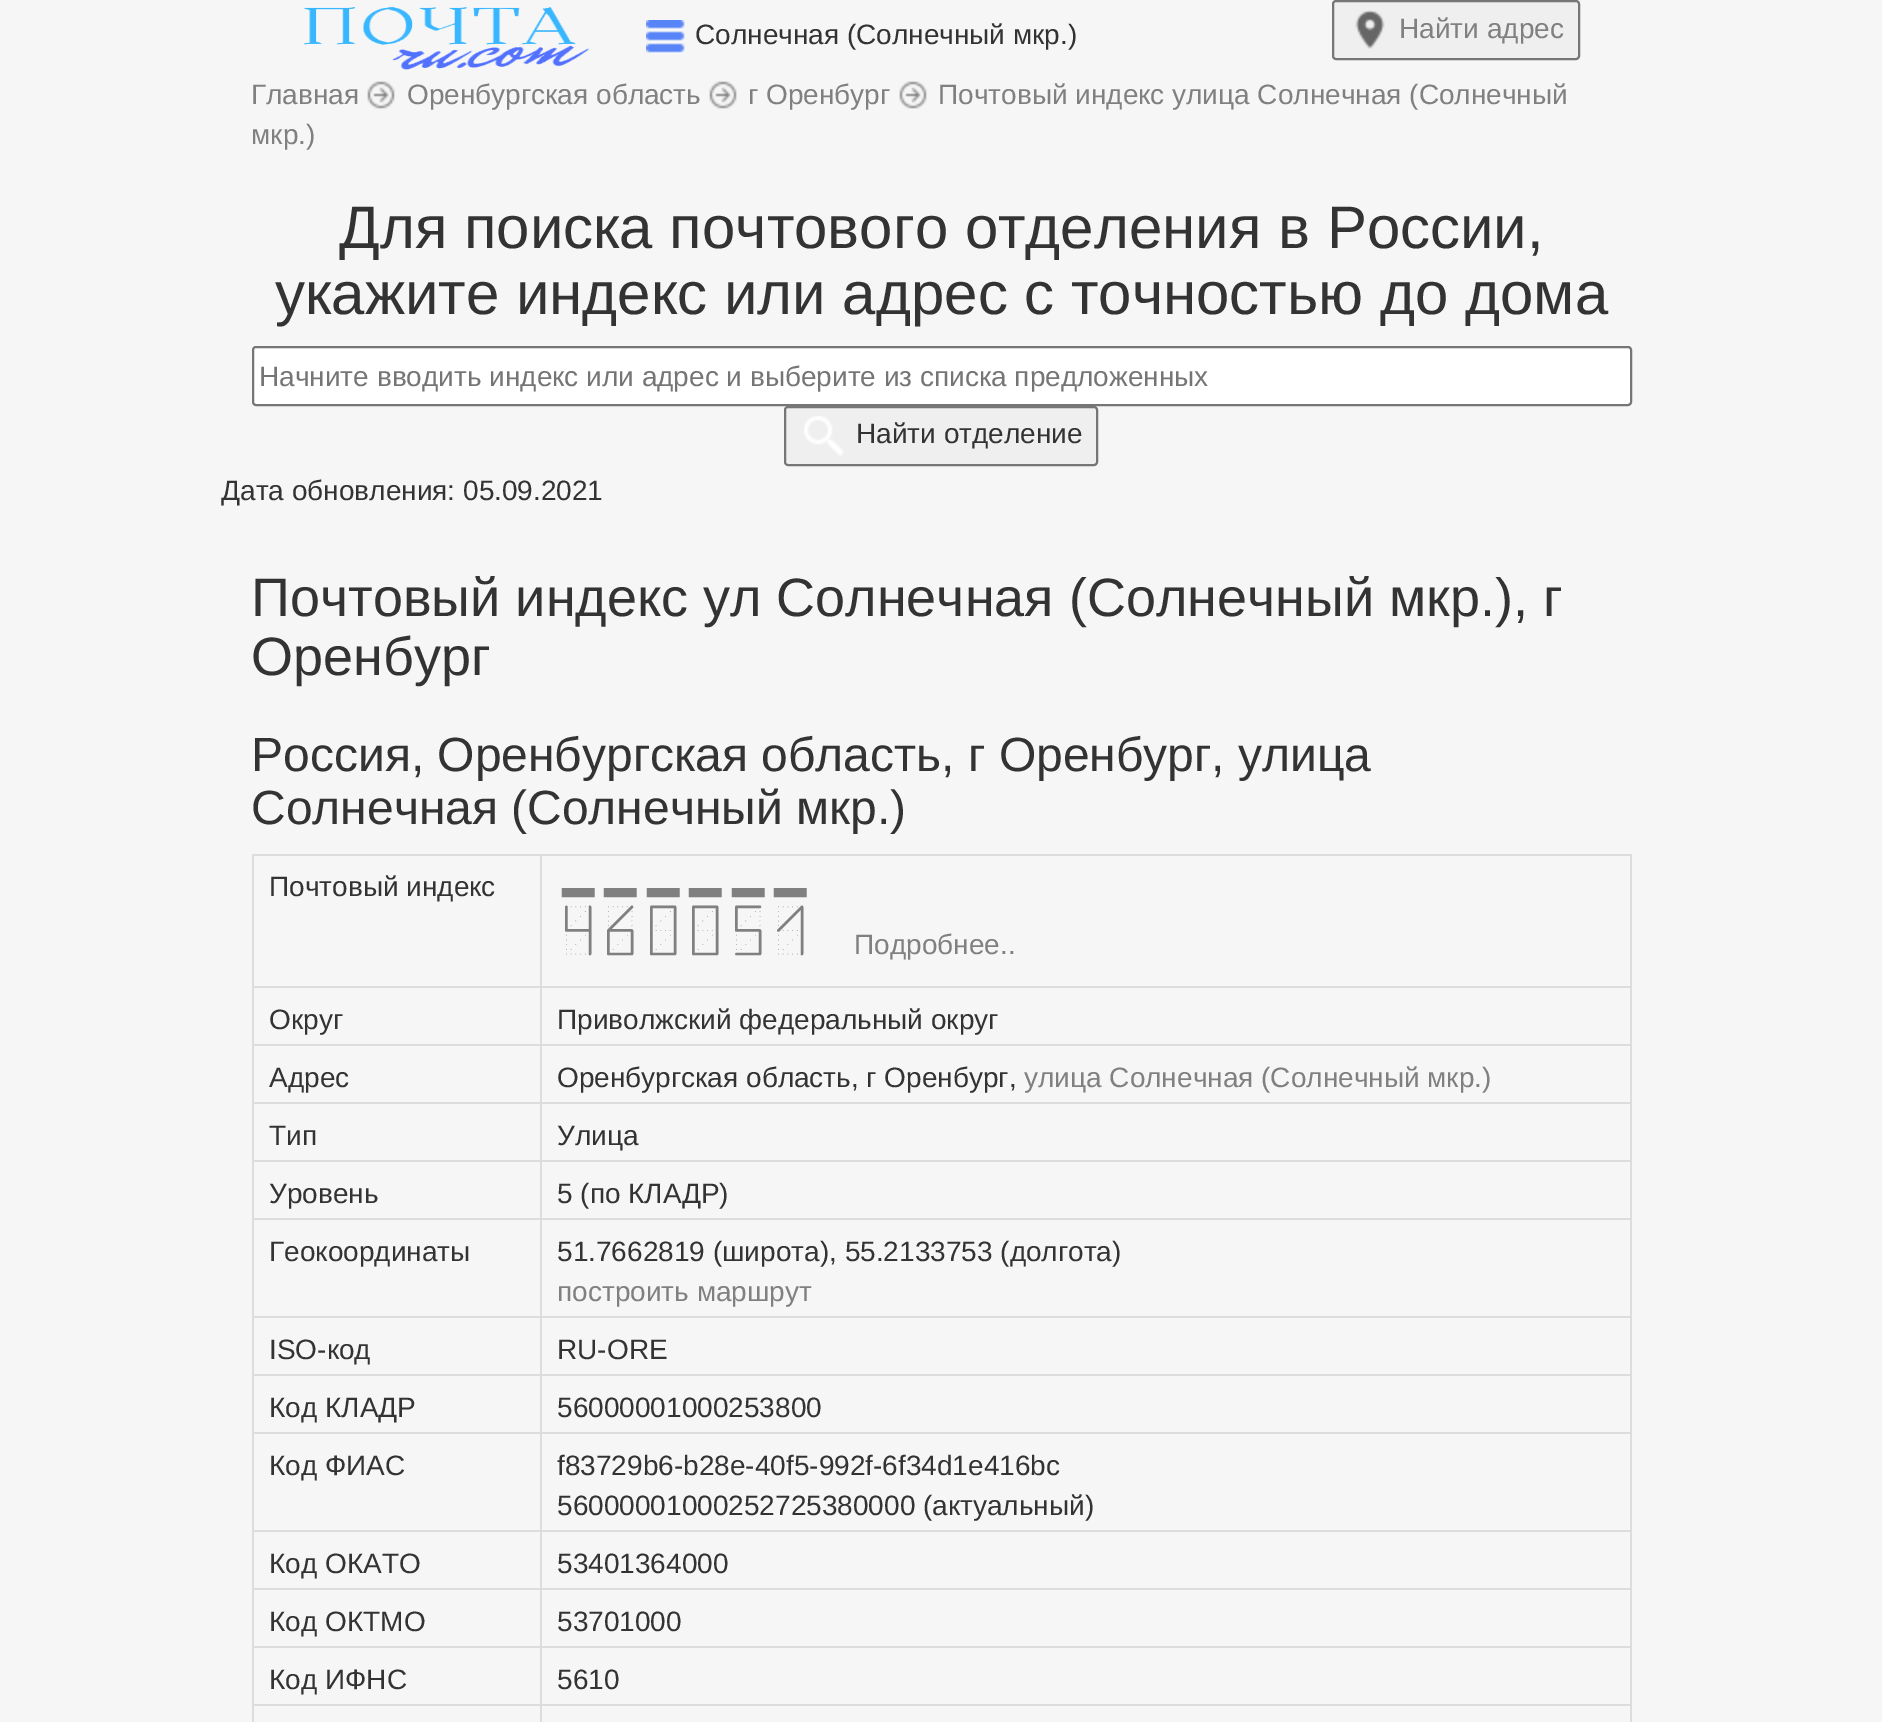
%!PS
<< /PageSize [1882 1722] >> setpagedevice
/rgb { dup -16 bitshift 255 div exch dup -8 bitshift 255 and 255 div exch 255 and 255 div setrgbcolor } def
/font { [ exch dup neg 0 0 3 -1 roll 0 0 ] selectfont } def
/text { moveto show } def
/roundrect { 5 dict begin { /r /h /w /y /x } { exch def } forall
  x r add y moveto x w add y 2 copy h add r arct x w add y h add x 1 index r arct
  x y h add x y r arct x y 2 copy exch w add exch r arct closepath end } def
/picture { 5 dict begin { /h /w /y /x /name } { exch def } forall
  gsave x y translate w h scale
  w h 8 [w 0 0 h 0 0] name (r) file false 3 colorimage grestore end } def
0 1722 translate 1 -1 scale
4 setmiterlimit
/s1 { /LiberationSans-Regular 28 font 16#333333 rgb } def
/s2 { /LiberationSans-Regular 28 font 16#808080 rgb } def
/s3 { /LiberationSans-Regular 60 font 16#333333 rgb } def
/s4 { /LiberationSans-Regular 28 font 16#757575 rgb } def
/s5 { /LiberationSans-Regular 54 font 16#333333 rgb } def
/s6 { /LiberationSans-Regular 48 font 16#333333 rgb } def
/s7 { /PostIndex-Regular 80 font 16#808080 rgb } def
16#F6F6F6 rgb
0 0 1882 1722 rectfill
(pic1.raw) 303 7 286 63 picture
(pic2.raw) 646 20 39 34 picture
s1
(Солнечная \(Солнечный мкр.\)) 695 44 text
16#EFEFEF rgb
1333 1 246 58 3 roundrect gsave fill grestore
16#767676 rgb
2 setlinewidth
stroke
(pic3.raw) 1355 10 30 39 picture
s2
(Найти адрес) 1399 38 text
(Главная) 251 104 text
(pic4.raw) 367 81 28 28 picture
(Оренбургская область) 407 104 text
(pic4.raw) 709 81 28 28 picture
(г Оренбург) 748 104 text
(pic4.raw) 899 81 28 28 picture
(Почтовый индекс улица Солнечная \(Солнечный) 938 104 text
(мкр.\)) 251 144 text
s3
(Для поиска почтового отделения в России,) 339 248 text
(укажите индекс или адрес с точностью до дома) 275 314 text
16#FFFFFF rgb
253 347 1378 58 3 roundrect gsave fill grestore
16#767676 rgb
stroke
s4
(Начните вводить индекс или адрес и выберите из списка предложенных) 259 386 text
16#EFEFEF rgb
785 407 312 58 3 roundrect gsave fill grestore
16#767676 rgb
stroke
(pic5.raw) 804 416 40 40 picture
s1
(Найти отделение) 856 443 text
(Дата обновления: 05.09.2021) 221 500 text
s5
(Почтовый индекс ул Солнечная \(Солнечный мкр.\), г) 251 616 text
(Оренбург) 251 675 text
s6
(Россия, Оренбургская область, г Оренбург, улица) 251 771 text
(Солнечная \(Солнечный мкр.\)) 251 824 text
16#DDDDDD rgb
252 854 1380 2 rectfill
1630 854 2 868 rectfill
252 854 2 868 rectfill
s1
(Почтовый индекс) 269 896 text
16#DDDDDD rgb
540 986 1092 2 rectfill
540 1044 1092 2 rectfill
540 1102 1092 2 rectfill
540 1160 1092 2 rectfill
540 1218 1092 2 rectfill
540 1316 1092 2 rectfill
540 1374 1092 2 rectfill
540 1432 1092 2 rectfill
540 1530 1092 2 rectfill
540 1588 1092 2 rectfill
540 1646 1092 2 rectfill
540 1704 1092 2 rectfill
540 1704 2 18 rectfill
252 1704 290 2 rectfill
540 1646 2 60 rectfill
252 1646 290 2 rectfill
540 1588 2 60 rectfill
252 1588 290 2 rectfill
540 1530 2 60 rectfill
252 1530 290 2 rectfill
540 1432 2 100 rectfill
252 1432 290 2 rectfill
540 1374 2 60 rectfill
252 1374 290 2 rectfill
540 1316 2 60 rectfill
252 1316 290 2 rectfill
540 1218 2 100 rectfill
252 1218 290 2 rectfill
540 1160 2 60 rectfill
252 1160 290 2 rectfill
540 1102 2 60 rectfill
252 1102 290 2 rectfill
540 1044 2 60 rectfill
252 1044 290 2 rectfill
540 986 2 60 rectfill
252 986 290 2 rectfill
540 854 2 134 rectfill
s7
(460051) 557 954 text
s2
(Подробнее..) 854 954 text
s1
(Округ) 269 1029 text
(Приволжский федеральный округ) 557 1029 text
(Адрес) 269 1087 text
(Оренбургская область, г Оренбург,) 557 1087 text
s2
(улица Солнечная \(Солнечный мкр.\)) 1024 1087 text
s1
(Тип) 269 1145 text
(Улица) 557 1145 text
(Уровень) 269 1203 text
(5 \(по КЛАДР\)) 557 1203 text
(Геокоординаты) 269 1261 text
(51.7662819 \(широта\), 55.2133753 \(долгота\)) 557 1261 text
s2
(построить маршрут) 557 1301 text
s1
(ISO-код) 269 1359 text
(RU-ORE) 557 1359 text
(Код КЛАДР) 269 1417 text
(56000001000253800) 557 1417 text
(Код ФИАС) 269 1475 text
(f83729b6-b28e-40f5-992f-6f34d1e416bc) 557 1475 text
(56000001000252725380000 \(актуальный\)) 557 1515 text
(Код ОКАТО) 269 1573 text
(53401364000) 557 1573 text
(Код ОКТМО) 269 1631 text
(53701000) 557 1631 text
(Код ИФНС) 269 1689 text
(5610) 557 1689 text
showpage
